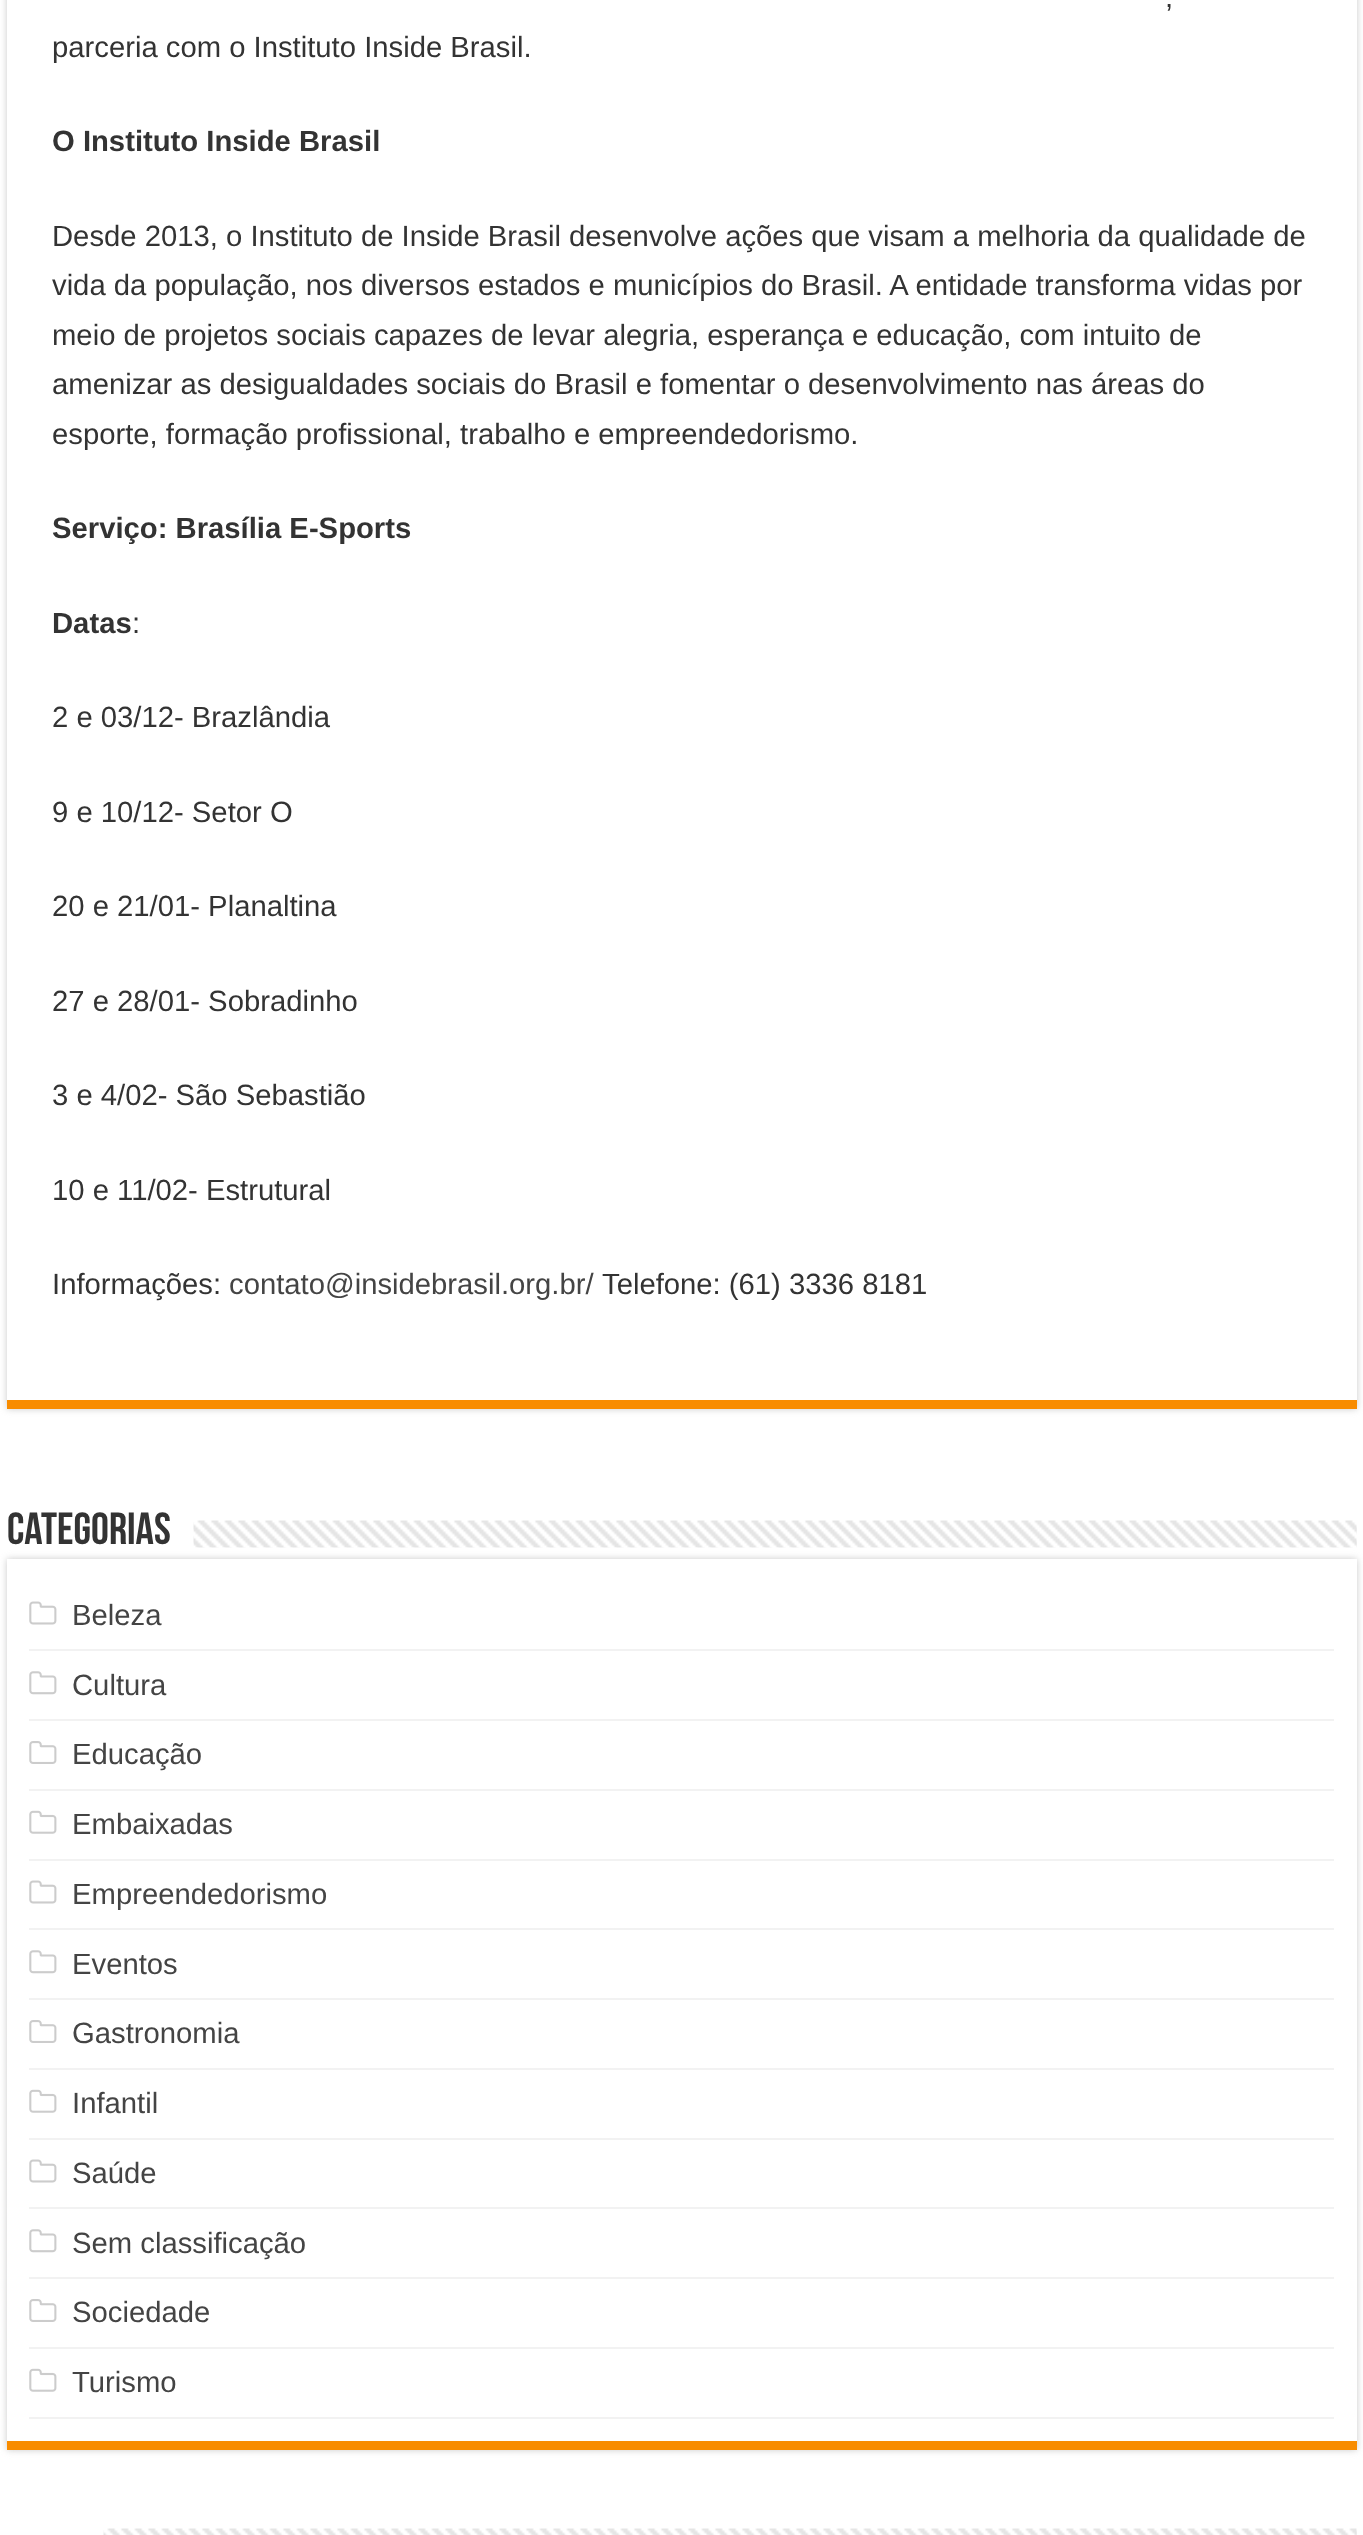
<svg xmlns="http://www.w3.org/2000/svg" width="1363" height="2535">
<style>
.a{font:29.25px Liberation Sans;fill:#333}
.b{font:bold 29.25px Liberation Sans;fill:#333}
.c{font:29.25px Liberation Sans;fill:#444}
.d{font:bold 45px Bebas Neue;fill:#333}
</style>
<rect width="100%" height="100%" fill="#fff"/>
<path fill="#cacaca" filter="blur(3.5px)" d="M7 -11h1350v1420H7z"/>
<path fill="#fff" d="M7 0h1350v1400H7z"/>
<path fill="#f88c00" d="M7 1400h1350v9H7z"/>
<path fill="#cacaca" filter="blur(3.5px)" d="M7 1559h1350v891H7z"/>
<image href="1.png" x="193" y="1520" width="1164" height="28"/>
<path fill="#fff" d="M7 1559h1350v882H7z"/>
<path fill="#f88c00" d="M7 2441h1350v9H7z"/>
<path fill="#f2f2f2" d="M29 1649h1305v2H29z"/>
<image href="2.png" x="29" y="1601" width="28" height="24"/>
<path fill="#f2f2f2" d="M29 1719h1305v2H29z"/>
<image href="3.png" x="29" y="1671" width="28" height="24"/>
<path fill="#f2f2f2" d="M29 1789h1305v2H29z"/>
<image href="4.png" x="29" y="1741" width="28" height="23"/>
<path fill="#f2f2f2" d="M29 1859h1305v2H29z"/>
<image href="5.png" x="29" y="1810" width="28" height="24"/>
<path fill="#f2f2f2" d="M29 1928h1305v2H29z"/>
<image href="2.png" x="29" y="1880" width="28" height="24"/>
<path fill="#f2f2f2" d="M29 1998h1305v2H29z"/>
<image href="3.png" x="29" y="1950" width="28" height="24"/>
<path fill="#f2f2f2" d="M29 2068h1305v2H29z"/>
<image href="4.png" x="29" y="2020" width="28" height="23"/>
<path fill="#f2f2f2" d="M29 2138h1305v2H29z"/>
<image href="5.png" x="29" y="2089" width="28" height="24"/>
<path fill="#f2f2f2" d="M29 2207h1305v2H29z"/>
<image href="2.png" x="29" y="2159" width="28" height="24"/>
<path fill="#f2f2f2" d="M29 2277h1305v2H29z"/>
<image href="3.png" x="29" y="2229" width="28" height="24"/>
<path fill="#f2f2f2" d="M29 2347h1305v2H29z"/>
<image href="4.png" x="29" y="2299" width="28" height="23"/>
<path fill="#f2f2f2" d="M29 2417h1305v2H29z"/>
<image href="5.png" x="29" y="2368" width="28" height="24"/>
<image href="6.png" x="103" y="2528" width="1254" height="7"/>
<text class="a" x="1165" y="7">,</text>
<text class="a" x="52" y="57">parceria com o Instituto Inside Brasil.</text>
<text class="b" x="52" y="151">O Instituto Inside Brasil</text>
<text class="a" x="52" y="246">Desde 2013, o Instituto de Inside Brasil desenvolve ações que visam a melhoria da qualidade de</text>
<text class="a" x="52" y="295">vida da população, nos diversos estados e municípios do Brasil. A entidade transforma vidas por</text>
<text class="a" x="52" y="345">meio de projetos sociais capazes de levar alegria, esperança e educação, com intuito de</text>
<text class="a" x="52" y="394">amenizar as desigualdades sociais do Brasil e fomentar o desenvolvimento nas áreas do</text>
<text class="a" x="52" y="444">esporte, formação profissional, trabalho e empreendedorismo.</text>
<text class="b" x="52" y="538">Serviço: Brasília E-Sports</text>
<text class="b" x="52" y="633">Datas</text>
<text class="a" x="132" y="633">:</text>
<text class="a" x="52" y="727">2 e 03/12- Brazlândia</text>
<text class="a" x="52" y="822">9 e 10/12- Setor O</text>
<text class="a" x="52" y="916">20 e 21/01- Planaltina</text>
<text class="a" x="52" y="1011">27 e 28/01- Sobradinho</text>
<text class="a" x="52" y="1105">3 e 4/02- São Sebastião</text>
<text class="a" x="52" y="1200">10 e 11/02- Estrutural</text>
<text class="a" x="52" y="1294">Informações:</text>
<text class="c" x="229" y="1294">contato@insidebrasil.org.br/</text>
<text class="a" x="602" y="1294">Telefone: (61) 3336 8181</text>
<text class="d" x="7" y="1544">Categorias</text>
<text class="c" x="72" y="1625">Beleza</text>
<text class="c" x="72" y="1695">Cultura</text>
<text class="c" x="72" y="1764">Educação</text>
<text class="c" x="72" y="1834">Embaixadas</text>
<text class="c" x="72" y="1904">Empreendedorismo</text>
<text class="c" x="72" y="1974">Eventos</text>
<text class="c" x="72" y="2043">Gastronomia</text>
<text class="c" x="72" y="2113">Infantil</text>
<text class="c" x="72" y="2183">Saúde</text>
<text class="c" x="72" y="2253">Sem classificação</text>
<text class="c" x="72" y="2322">Sociedade</text>
<text class="c" x="72" y="2392">Turismo</text>
</svg>
